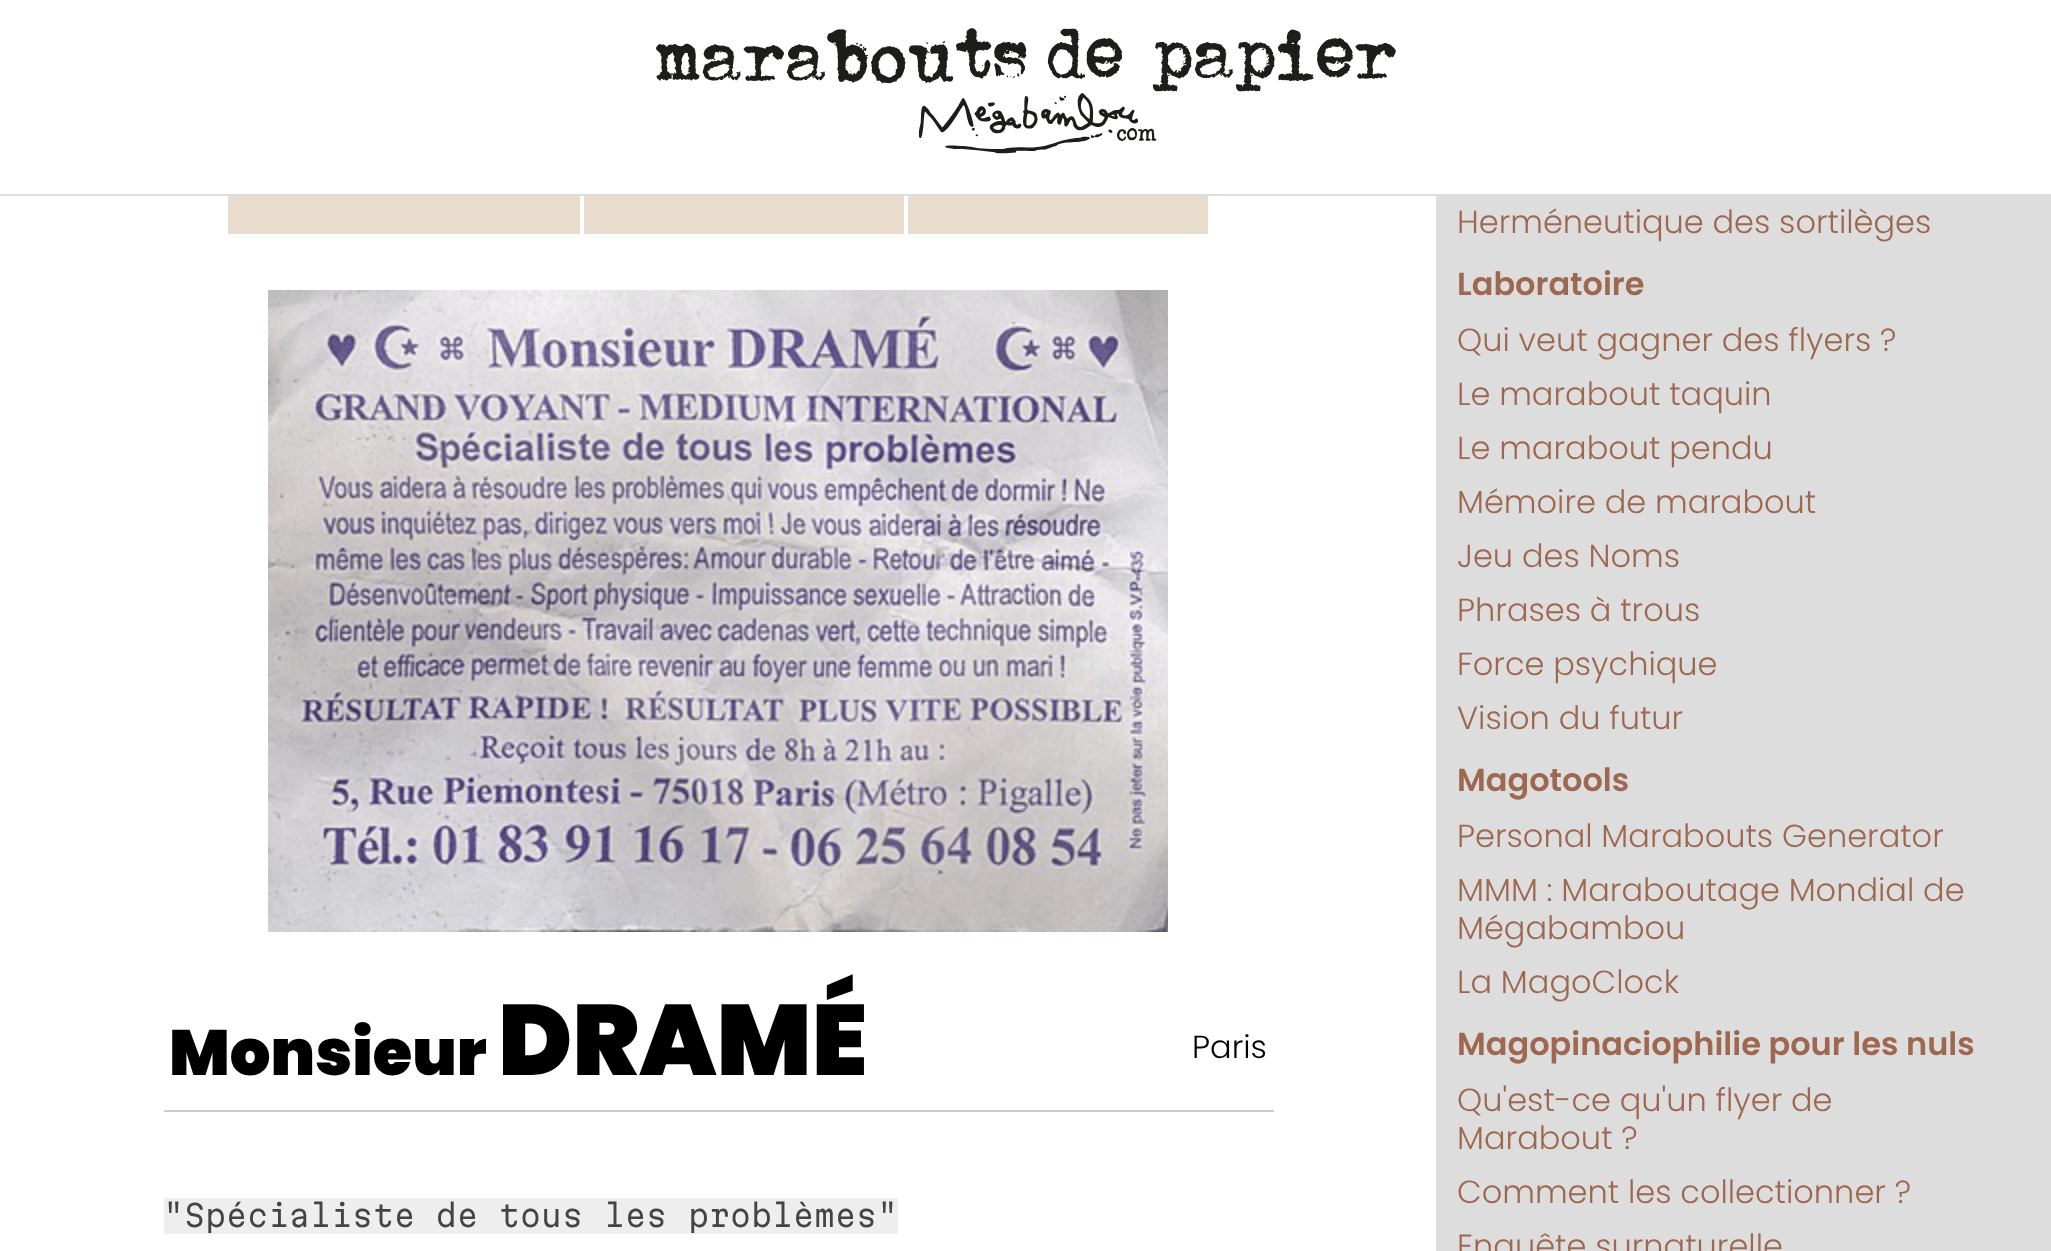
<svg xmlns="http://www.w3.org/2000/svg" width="2051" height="1251">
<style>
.a{font:900 64px Poppins;fill:#000}
.b{font:900 100px Poppins;fill:#000}
.c{font:300 32px Poppins;fill:#000}
.d{font:300 30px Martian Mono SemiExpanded;fill:#444}
.e{font:300 32px Poppins;fill:#9e6850}
.f{font:600 32px Poppins;fill:#9e6850}
</style>
<rect width="100%" height="100%" fill="#fff"/>
<path fill="#ddd" d="M0 194h2051v2H0z"/>
<image href="1.png" x="656" y="28" width="740" height="126"/>
<path fill="#ddd" d="M1436 196h615v1055H1436z"/>
<path fill="#e8dccc" d="M228 196h352v38H228z"/>
<path fill="#e8dccc" d="M584 196h320v38H584z"/>
<path fill="#e8dccc" d="M908 196h300v38H908z"/>
<image href="2.png" x="268" y="290" width="900" height="642"/>
<path fill="#ccc" d="M164 1110h1110v2H164z"/>
<path fill="#eee" d="M164 1198h734v36H164z"/>
<text class="a" x="169" y="1075">Monsieur</text>
<text class="b" x="498" y="1075">DRAMÉ</text>
<text class="c" x="1192" y="1058">Paris</text>
<text class="d" x="163" y="1227">"Spécialiste de tous les problèmes"</text>
<text class="e" x="1457" y="233">Herméneutique des sortilèges</text>
<text class="f" x="1457" y="295">Laboratoire</text>
<text class="e" x="1457" y="351">Qui veut gagner des flyers ?</text>
<text class="e" x="1457" y="405">Le marabout taquin</text>
<text class="e" x="1457" y="459">Le marabout pendu</text>
<text class="e" x="1457" y="513">Mémoire de marabout</text>
<text class="e" x="1457" y="567">Jeu des Noms</text>
<text class="e" x="1457" y="621">Phrases à trous</text>
<text class="e" x="1457" y="675">Force psychique</text>
<text class="e" x="1457" y="729">Vision du futur</text>
<text class="f" x="1457" y="791">Magotools</text>
<text class="e" x="1457" y="847">Personal Marabouts Generator</text>
<text class="e" x="1457" y="901">MMM : Maraboutage Mondial de</text>
<text class="e" x="1457" y="939">Mégabambou</text>
<text class="e" x="1457" y="993">La MagoClock</text>
<text class="f" x="1457" y="1055">Magopinaciophilie pour les nuls</text>
<text class="e" x="1457" y="1111">Qu'est-ce qu'un flyer de</text>
<text class="e" x="1457" y="1149">Marabout ?</text>
<text class="e" x="1457" y="1203">Comment les collectionner ?</text>
<text class="e" x="1457" y="1257">Enquête surnaturelle</text>
</svg>
